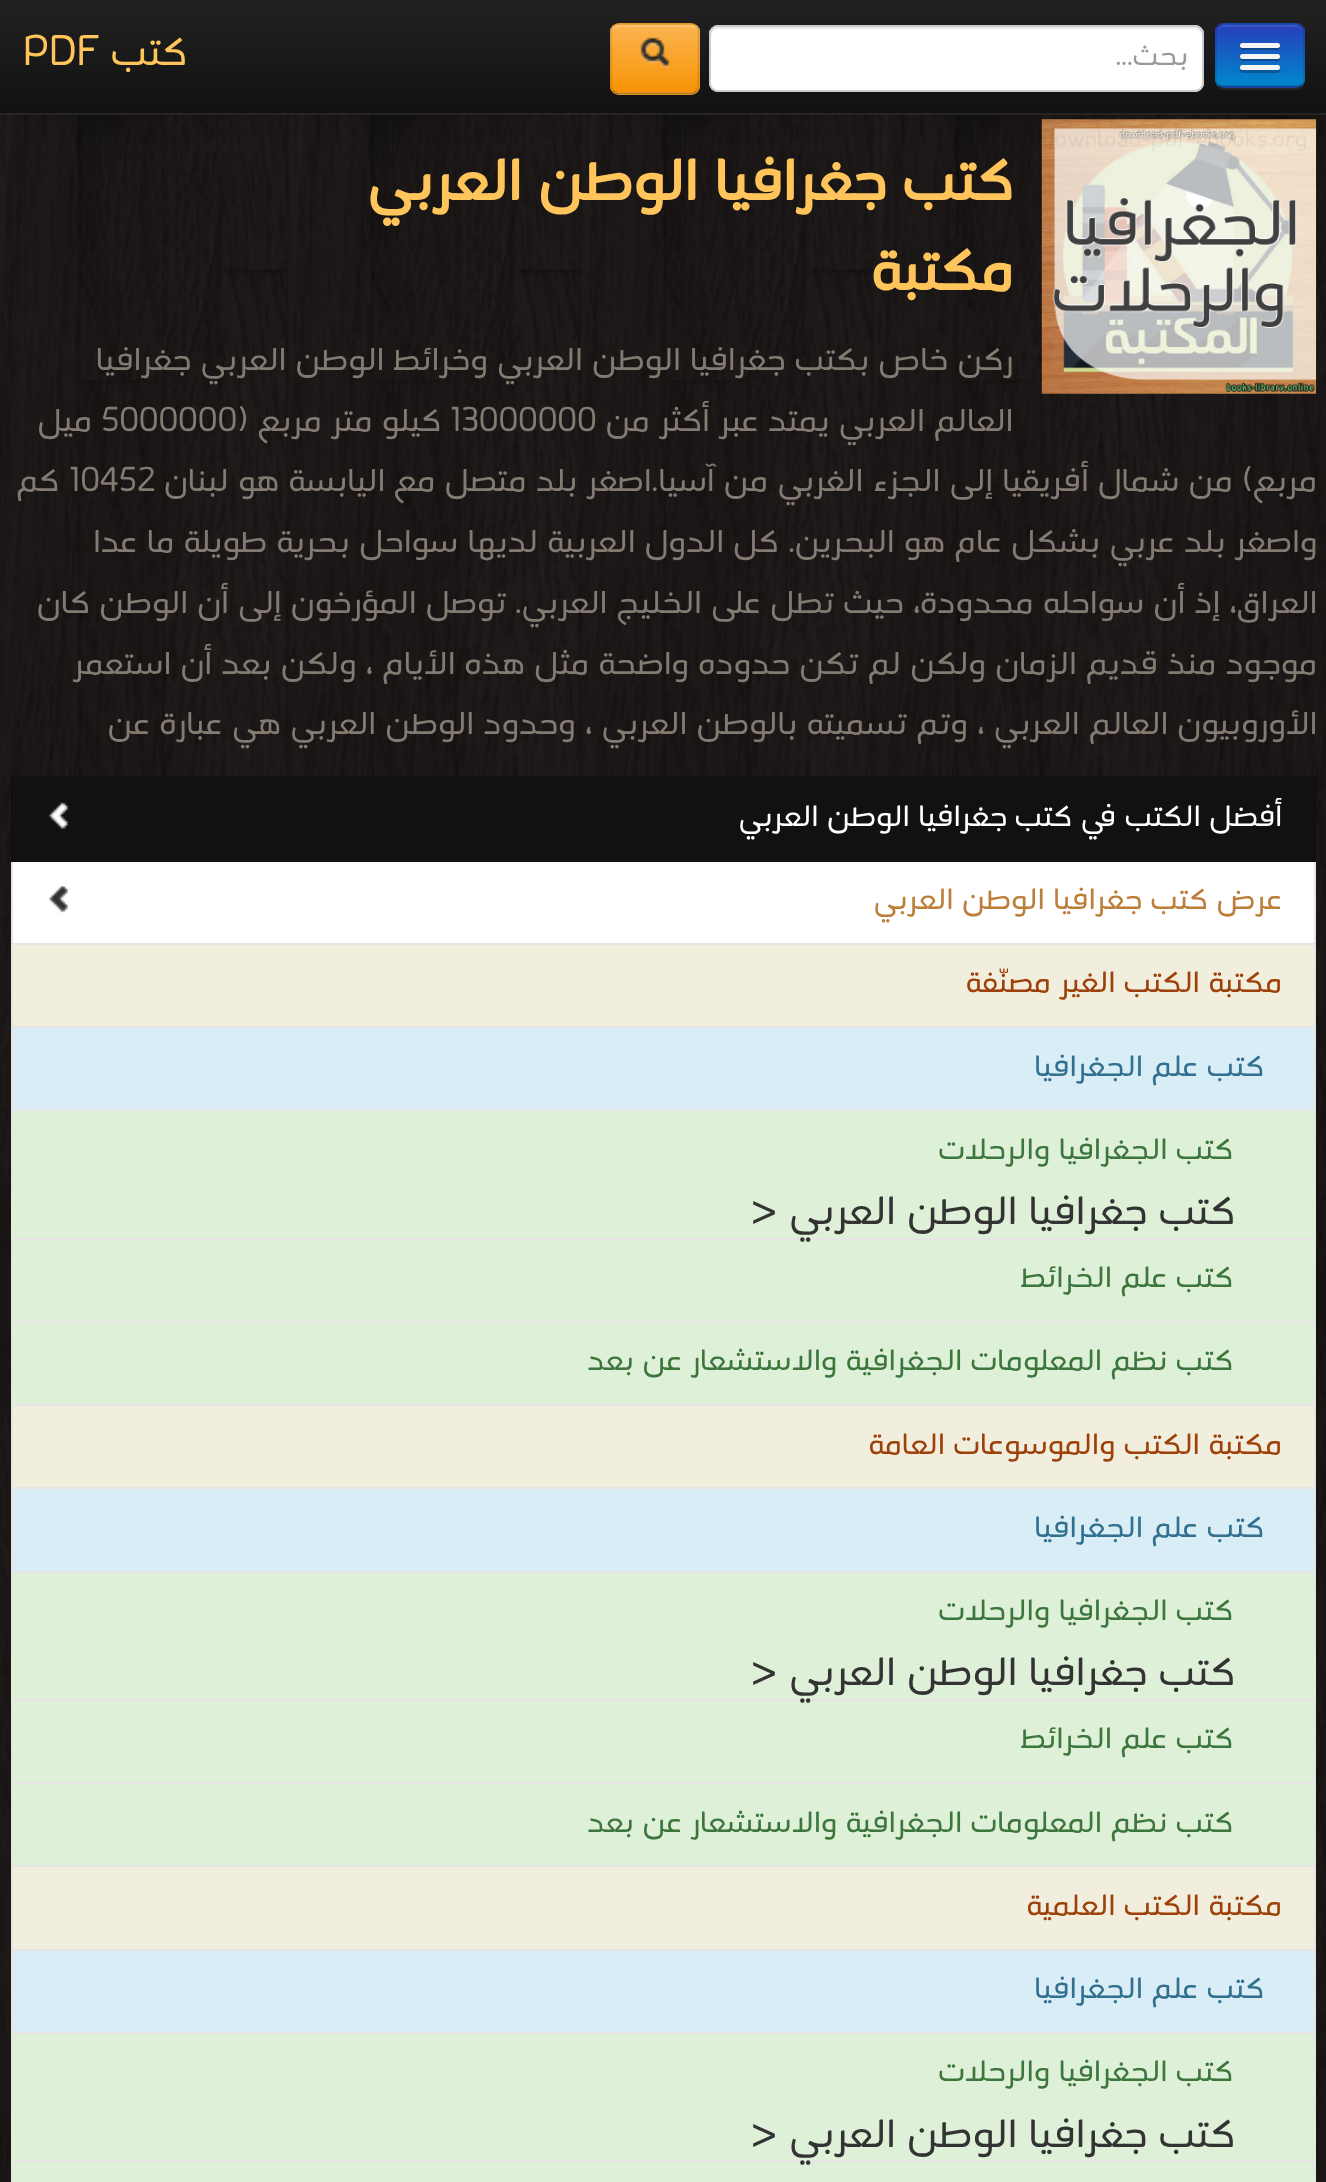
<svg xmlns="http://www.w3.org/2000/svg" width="1326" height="2182">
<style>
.a{font:31.5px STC;direction:rtl;fill:#999}
.b{font:45px STC;direction:rtl;fill:#ffc55b}
.c{font:45px STC;fill:#ffc55b}
.d{font:bold 65.25px STC;direction:rtl;fill:#ffc55b}
.e{font:36.25px STC;direction:rtl;fill:#837a71}
.f{font:36.25px STC;fill:#837a71}
.g{font:33.75px STC;direction:rtl;fill:#fff}
.h{font:33.75px STC;direction:rtl;fill:#bd7e3a}
.i{font:33.75px STC;direction:rtl;fill:#9d4009}
.j{font:33.75px STC;direction:rtl;fill:#31708f}
.k{font:33.75px STC;direction:rtl;fill:#3c763d}
.l{font:45px STC;direction:rtl;fill:#333}
.m{font:45px STC;fill:#333}
</style>
<defs>
<linearGradient id="g1" gradientUnits="userSpaceOnUse" x1="664" y1="0" x2="664" y2="113"><stop offset="0" stop-color="#222"/><stop offset="1" stop-color="#111"/></linearGradient>
<clipPath id="clip1"><rect x="1215" y="23" width="90" height="65" rx="9"/></clipPath>
<linearGradient id="g2" gradientUnits="userSpaceOnUse" x1="1260" y1="25" x2="1260" y2="86"><stop offset="0" stop-color="#263fbb"/><stop offset="1" stop-color="#08c"/></linearGradient>
<clipPath id="clip2"><rect x="610" y="23" width="90" height="72" rx="9"/></clipPath>
<linearGradient id="g3" gradientUnits="userSpaceOnUse" x1="655" y1="25" x2="655" y2="92"><stop offset="0" stop-color="#fbb450"/><stop offset="1" stop-color="#f89406"/></linearGradient>
</defs>
<rect width="100%" height="100%" fill="#fff"/>
<image href="1.png" x="0" y="115" width="1326" height="2067"/>
<image href="3.png" x="1041" y="119" width="276" height="275"/>
<path fill="#0000001a" filter="blur(11px)" d="M0 2h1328v115H0z"/>
<path fill="url(#g1)" d="M0 0h1326v113H0z"/>
<path fill="#252525" d="M0 113h1326v2H0z"/>
<path fill="#272727" d="M1215 79c0 13 10 11 21 11h48c11 0 21 2 21-11c0 5-4 9-9 9h-72c-5 0-9-4-9-9z"/>
<rect fill="#1e50bf" x="1215" y="23" width="90" height="65" rx="9"/>
<g clip-path="url(#clip1)">
<path fill="url(#g2)" d="M1215 25h90v61H1215z"/>
</g>
<path fill="#ffffff1a" d="M1224 27h72c4 0 7 3 7 7c0-12-10-9-19-9h-48c-9 0-19-3-19 9c0-4 3-7 7-7z"/>
<path fill="none" stroke="#00000040" stroke-width="2.2" d="M1301.5 84.5c-1.5 1.5-3.5 2-5.5 2h-72c-2 0-4-.5-5.5-2"/>
<path fill="none" stroke="#0000001a" stroke-width="2.2" d="M1218.5 84.5c-1.5-1.5-2.5-3.5-2.5-5.5v-47.5c0-2 1-4 2.5-5.5c1.5-1.5 3.5-2.5 5.5-2.5h72c2 0 4 1 5.5 2.5c1.5 1.5 2.5 3.5 2.5 5.5v47.5c0 2-1 4-2.5 5.5"/>
<path fill="#00000040" d="M1240 46c-2 5 7 4 8 4h24c1 0 10 1 8-4l-2 1h-36z"/>
<rect fill="#f5f5f5" x="1240" y="43" width="40" height="5" rx="2.5"/>
<path fill="#0d4e93" d="M1240 58c-2 4 7 3 8 3h24c1 0 10 1 8-3h-2h-36z"/>
<rect fill="#f5f5f5" x="1240" y="54" width="40" height="5" rx="2.5"/>
<path fill="#00000040" d="M1240 69c-3 5 8 4 8 4h24c0 0 11 1 8-4c-2 1-38 1-40 0z"/>
<rect fill="#f5f5f5" x="1240" y="65" width="40" height="5" rx="2.5"/>
<rect fill="#fff" x="709" y="25" width="495" height="67" rx="9"/>
<path fill="#ececec" d="M718 29h477c3 0 7 3 7 7v-2c0-4-3-7-7-7h-477c-4 0-7 3-7 7v2c0-4 3-7 7-7z"/>
<rect fill="none" stroke="#ccc" stroke-width="2" x="710" y="26" width="493" height="65" rx="8"/>
<rect fill="#faa732" x="610" y="23" width="90" height="72" rx="9"/>
<g clip-path="url(#clip2)">
<path fill="url(#g3)" d="M610 25h90v67H610z"/>
</g>
<path fill="#ffffff33" d="M619 27h72c3 0 7 3 7 7c0-12-10-9-19-9h-48c-9 0-19-3-19 9c0-4 3-7 7-7z"/>
<path fill="none" stroke="#00000040" stroke-width="2.2" d="M696.5 91c-1.5 1.5-3.5 2.5-5.5 2.5h-72c-2.5 0-4.5-1-6-2.5"/>
<path fill="none" stroke="#0000001a" stroke-width="2.2" d="M613 91c-1.5-1.5-2-3.5-2-5.5v-54c0-2 .5-4 2-5.5c1.5-1.5 3.5-2.5 6-2.5h72c2 0 4 1 5.5 2.5c1.5 1.5 2 3.5 2 5.5v54c0 2-.5 4-2 5.5"/>
<image href="2.png" x="640" y="37" width="31" height="31"/>
<path fill="#fff" stroke="#e5e5e5" stroke-width="2" d="M12 861h1303v83H12z"/>
<path fill="#111" d="M13 776h1301v86H13z"/>
<path fill="#0f0f0f" d="M1314 776h2v86H1314z"/>
<path fill="#0f0f0f" d="M11 776h2v86H11z"/>
<image href="4.png" x="49" y="802" width="20" height="28"/>
<image href="5.png" x="49" y="886" width="20" height="28"/>
<path fill="#f2eede" stroke="#e5e5e5" stroke-width="2" d="M12 944h1303v83H12z"/>
<path fill="#d9edf7" d="M13 1028h1301v81H13z"/>
<path fill="none" stroke="#e5e5e5" stroke-width="2" d="M12 1027h1303v84H12z"/>
<path fill="#dff0d8" stroke="#e5e5e5" stroke-width="2" d="M12 1110h1303v84H12z"/>
<path fill="#dff0d8" d="M11 1193h1305v45H11z"/>
<path fill="#dff0d8" stroke="#e5e5e5" stroke-width="2" d="M12 1239h1303v83H12z"/>
<path fill="#dff0d8" stroke="#e5e5e5" stroke-width="2" d="M12 1322h1303v83H12z"/>
<path fill="#f2eede" d="M13 1406h1301v81H13z"/>
<path fill="none" stroke="#e5e5e5" stroke-width="2" d="M12 1405h1303v84H12z"/>
<path fill="#d9edf7" stroke="#e5e5e5" stroke-width="2" d="M12 1488h1303v84H12z"/>
<path fill="#dff0d8" stroke="#e5e5e5" stroke-width="2" d="M12 1572h1303v83H12z"/>
<path fill="#dff0d8" d="M11 1654h1305v45H11z"/>
<path fill="#dff0d8" stroke="#e5e5e5" stroke-width="2" d="M12 1700h1303v83H12z"/>
<path fill="#dff0d8" d="M13 1784h1301v81H13z"/>
<path fill="none" stroke="#e5e5e5" stroke-width="2" d="M12 1783h1303v84H12z"/>
<path fill="#f2eede" stroke="#e5e5e5" stroke-width="2" d="M12 1866h1303v84H12z"/>
<path fill="#d9edf7" stroke="#e5e5e5" stroke-width="2" d="M12 1950h1303v83H12z"/>
<path fill="#dff0d8" stroke="#e5e5e5" stroke-width="2" d="M12 2033h1303v83H12z"/>
<path fill="#dff0d8" d="M11 2115h1305v45H11z"/>
<path fill="#dff0d8" stroke="#e5e5e5" stroke-width="2" d="M12 2161h1303v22H12z"/>
<text class="a" x="1188" y="65">بحث...</text>
<text class="b" x="187" y="65">كتب</text>
<text class="c" x="23" y="65">PDF</text>
<text class="d" x="1013" y="200">كتب</text>
<text class="d" x="886" y="200">جغرافيا الوطن العربي</text>
<text class="d" x="1013" y="290">مكتبة</text>
<text class="e" x="1013" y="370">ركن خاص بكتب جغرافيا الوطن العربي وخرائط</text>
<text class="e" x="384" y="370">الوطن العربي جغرافيا</text>
<text class="e" x="1013" y="431">العالم العربي يمتد عبر أكثر من</text>
<text class="f" x="450" y="431">13000000</text>
<text class="e" x="441" y="431">كيلو متر مربع (</text>
<text class="f" x="101" y="431">5000000</text>
<text class="e" x="92" y="431">ميل</text>
<text class="e" x="1317" y="491">مربع) من شمال أفريقيا إلى الجزء الغربي من آسيا.اصغر بلد متصل مع اليابسة هو لبنان</text>
<text class="f" x="69" y="491">10452</text>
<text class="e" x="59" y="491">كم</text>
<text class="e" x="1317" y="552">واصغر بلد عربي بشكل عام هو البحرين. كل الدول العربية لديها سواحل بحرية طويلة ما عدا</text>
<text class="e" x="1317" y="613">العراق، إذ أن سواحله محدودة، حيث تطل على الخليج العربي.</text>
<text class="e" x="506" y="613">توصل المؤرخون إلى أن الوطن كان</text>
<text class="e" x="1317" y="674">موجود منذ قديم الزمان ولكن لم تكن حدوده واضحة مثل هذه الأيام ، ولكن بعد أن استعمر</text>
<text class="e" x="1317" y="734">الأوروبيون العالم العربي ، وتم تسميته بالوطن العربي ، وحدود الوطن العربي هي عبارة عن</text>
<text class="g" x="1282" y="826">أفضل الكتب في كتب</text>
<text class="g" x="1007" y="826">جغرافيا الوطن العربي</text>
<text class="h" x="1282" y="909">عرض كتب</text>
<text class="h" x="1142" y="909">جغرافيا الوطن العربي</text>
<text class="i" x="1282" y="992">مكتبة الكتب الغير مصنّفة</text>
<text class="j" x="1264" y="1076">كتب علم الجغرافيا</text>
<text class="k" x="1233" y="1159">كتب الجغرافيا والرحلات</text>
<text class="l" x="1235" y="1224">كتب جغرافيا الوطن العربي</text>
<text class="m" x="751" y="1224">&gt;</text>
<text class="k" x="1233" y="1287">كتب علم الخرائط</text>
<text class="k" x="1233" y="1370">كتب نظم المعلومات الجغرافية والاستشعار عن بعد</text>
<text class="i" x="1282" y="1454">مكتبة الكتب والموسوعات العامة</text>
<text class="j" x="1264" y="1537">كتب علم الجغرافيا</text>
<text class="k" x="1233" y="1620">كتب الجغرافيا والرحلات</text>
<text class="l" x="1235" y="1685">كتب جغرافيا الوطن العربي</text>
<text class="m" x="751" y="1685">&gt;</text>
<text class="k" x="1233" y="1748">كتب علم الخرائط</text>
<text class="k" x="1233" y="1832">كتب نظم المعلومات الجغرافية والاستشعار عن بعد</text>
<text class="i" x="1282" y="1915">مكتبة الكتب العلمية</text>
<text class="j" x="1264" y="1998">كتب علم الجغرافيا</text>
<text class="k" x="1233" y="2081">كتب الجغرافيا والرحلات</text>
<text class="l" x="1235" y="2147">كتب جغرافيا الوطن العربي</text>
<text class="m" x="751" y="2147">&gt;</text>
</svg>
